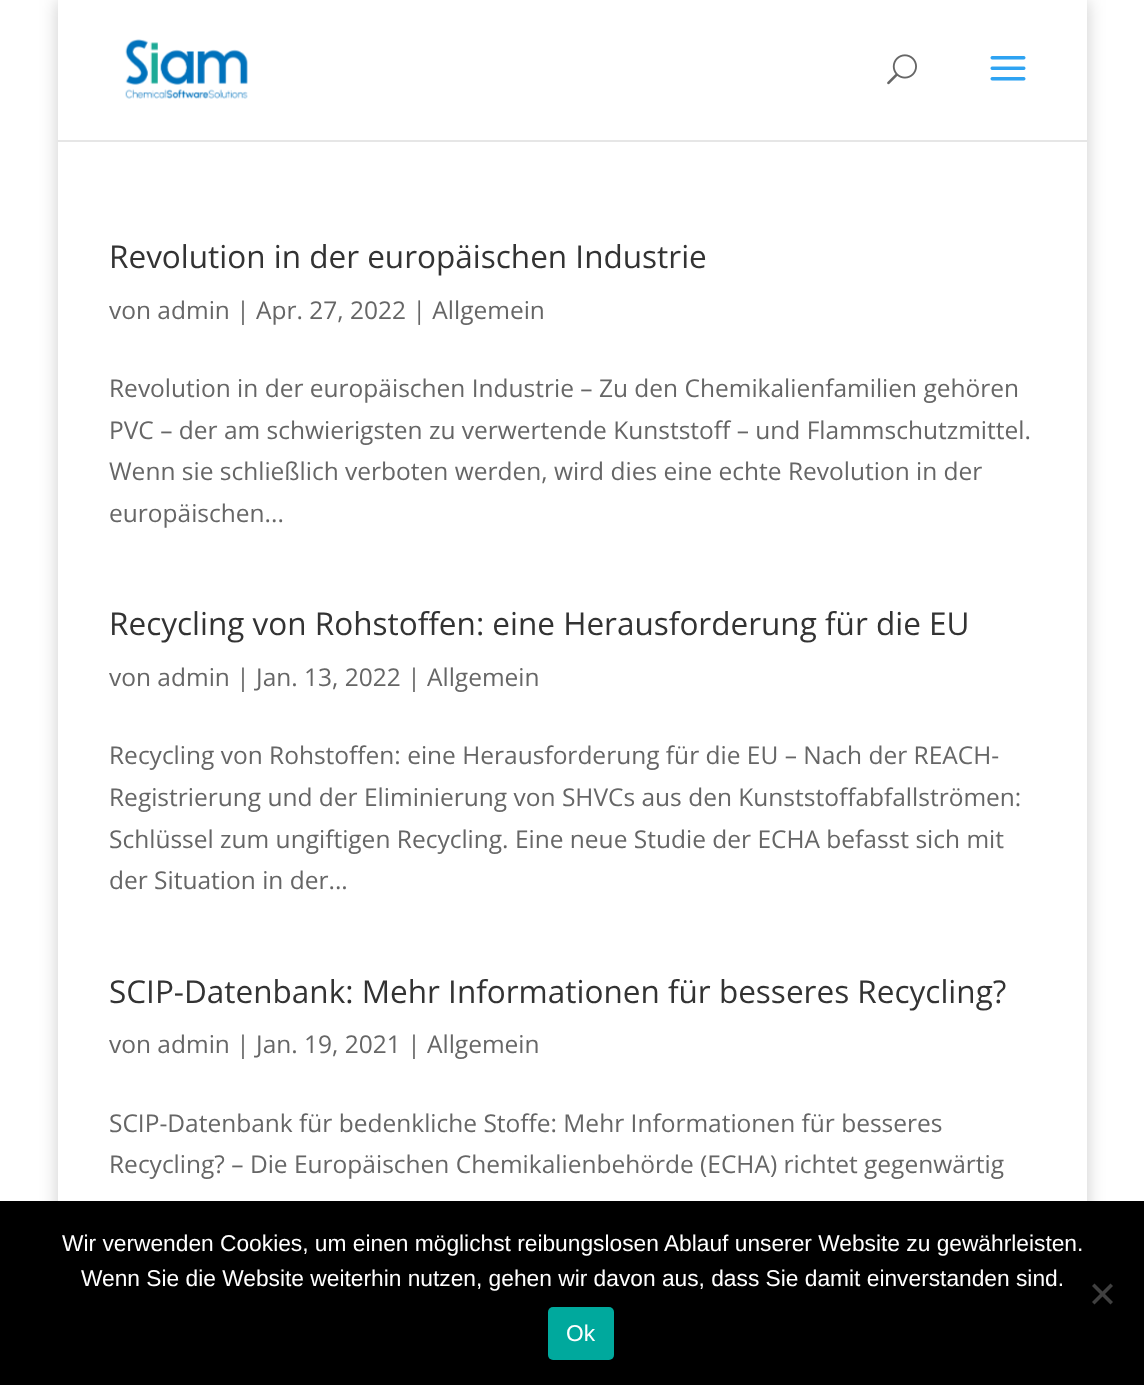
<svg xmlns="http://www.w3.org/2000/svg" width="1144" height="1385">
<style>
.a{font:31.5px Open Sans;fill:#333}
.b{font:24.5px Open Sans;fill:#666}
.c{font:22.75px Liberation Sans;fill:#fff}
</style>
<rect width="100%" height="100%" fill="#fff"/>
<path fill="#00000033" filter="blur(9px)" d="M58 0h1029v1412H58z"/>
<path fill="#e6e6e6" d="M58 140v2h1029v-140v138z"/>
<path fill="#fff" d="M58 0h1029v140H58z"/>
<image href="1.png" x="125" y="39" width="123" height="60"/>
<image href="2.png" x="887" y="54" width="30" height="31"/>
<image href="3.png" x="990" y="56" width="36" height="25"/>
<path fill="#fff" d="M58 142h1029v1059H58z"/>
<path fill="#000" d="M0 1201h1144v184H0z"/>
<path fill="#404040" d="M1110.5 1283.5l2.5 2.5l-18.5 18.5l-2.5-2.5z"/>
<path fill="#404040" d="M1092 1286l2.5-2.5l18.5 18.5l-2.5 2.5z"/>
<rect fill="#00a99d" x="548" y="1307" width="66" height="53" rx="5"/>
<text class="a" x="109" y="268">Revolution in der europäischen Industrie</text>
<text class="b" x="109" y="319">von admin | Apr. 27, 2022 | Allgemein</text>
<text class="b" x="109" y="397">Revolution in der europäischen Industrie – Zu den Chemikalienfamilien gehören</text>
<text class="b" x="109" y="439">PVC – der am schwierigsten zu verwertende Kunststoff – und Flammschutzmittel.</text>
<text class="b" x="109" y="480">Wenn sie schließlich verboten werden, wird dies eine echte Revolution in der</text>
<text class="b" x="109" y="522">europäischen...</text>
<text class="a" x="109" y="635">Recycling von Rohstoffen: eine Herausforderung für die EU</text>
<text class="b" x="109" y="686">von admin | Jan. 13, 2022 | Allgemein</text>
<text class="b" x="109" y="764">Recycling von Rohstoffen: eine Herausforderung für die EU – Nach der REACH-</text>
<text class="b" x="109" y="806">Registrierung und der Eliminierung von SHVCs aus den Kunststoffabfallströmen:</text>
<text class="b" x="109" y="848">Schlüssel zum ungiftigen Recycling. Eine neue Studie der ECHA befasst sich mit</text>
<text class="b" x="109" y="889">der Situation in der...</text>
<text class="a" x="109" y="1003">SCIP-Datenbank: Mehr Informationen für besseres Recycling?</text>
<text class="b" x="109" y="1053">von admin | Jan. 19, 2021 | Allgemein</text>
<text class="b" x="109" y="1132">SCIP-Datenbank für bedenkliche Stoffe: Mehr Informationen für besseres</text>
<text class="b" x="109" y="1173">Recycling? – Die Europäischen Chemikalienbehörde (ECHA) richtet gegenwärtig</text>
<text class="c" x="62" y="1251">Wir verwenden Cookies, um einen möglichst reibungslosen Ablauf unserer Website zu gewährleisten.</text>
<text class="c" x="81" y="1286">Wenn Sie die Website weiterhin nutzen, gehen wir davon aus, dass Sie damit einverstanden sind.</text>
<text class="c" x="566" y="1341">Ok</text>
</svg>
